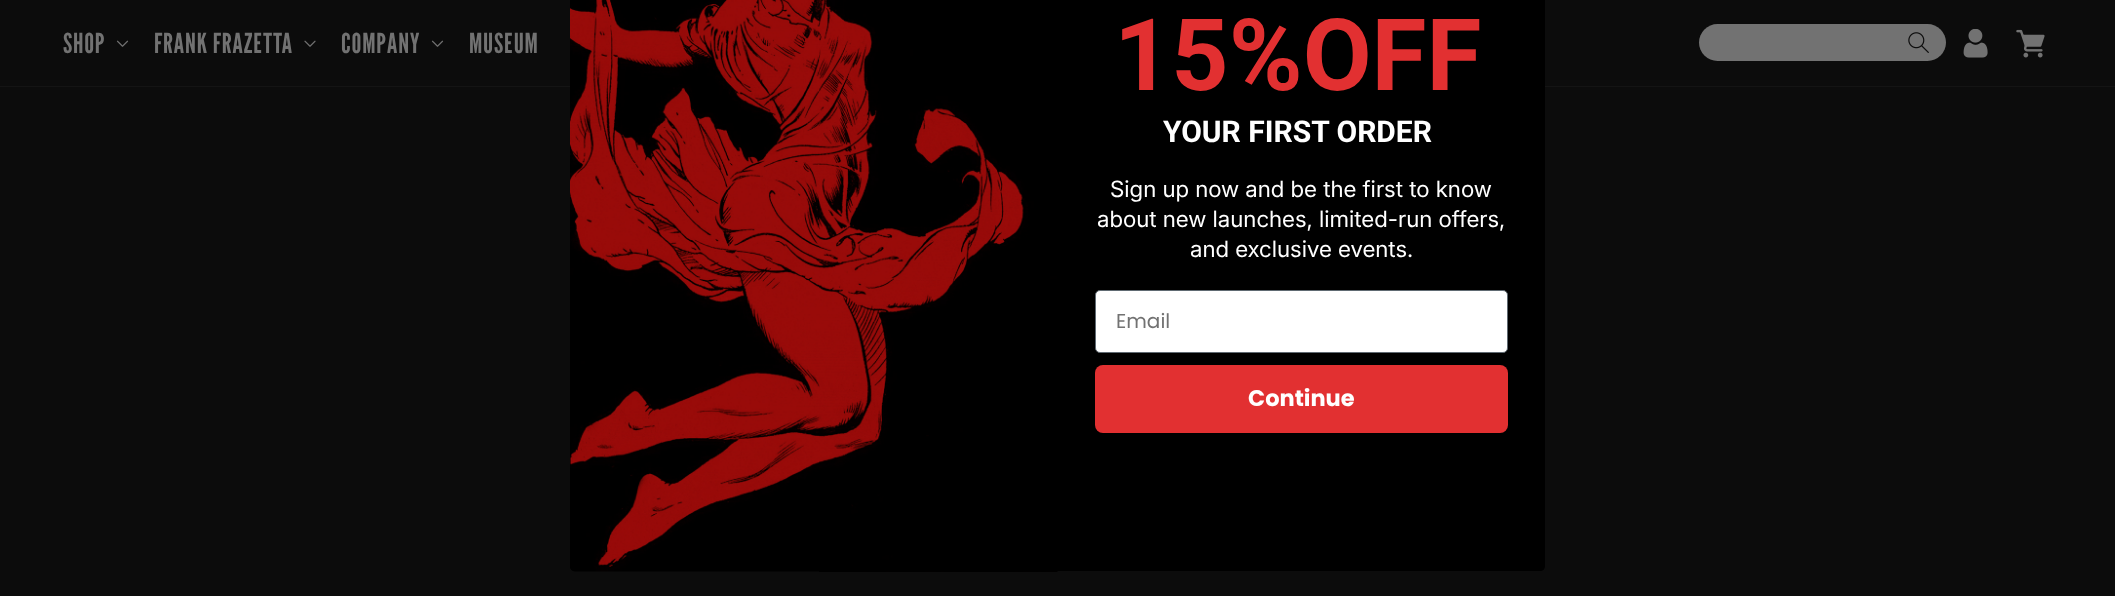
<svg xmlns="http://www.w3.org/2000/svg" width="2115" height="596">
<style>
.a{font:27.5px League Gothic;letter-spacing:0.75px;fill:#727272}
.b{font:bold 100px Roboto;fill:#e23031}
.c{font:bold 30px Roboto;fill:#fff}
.d{font:22.5px Inter;fill:#fff}
.e{font:20px Poppins;fill:#727272}
.f{font:bold 22.5px Poppins;fill:#fff}
</style>
<rect width="100%" height="100%" fill="#0c0c0c"/>
<path fill="#141414" d="M0 86h2115v1H0z"/>
<image href="1.png" x="116" y="40" width="13" height="7"/>
<image href="2.png" x="304" y="40" width="12" height="7"/>
<image href="1.png" x="431" y="40" width="13" height="7"/>
<rect fill="#727272" x="1699" y="24" width="247" height="37" rx="18.5"/>
<image href="3.png" x="1908" y="32" width="21" height="21"/>
<image href="4.png" x="1963" y="29" width="25" height="29"/>
<image href="5.png" x="2016" y="29" width="29" height="29"/>
<path fill="#000" d="M570 0h975v566c0 3-2 5-5 5h-965c-3 0-5-2-5-5z"/>
<image href="6.png" x="570" y="0" width="488" height="572"/>
<rect fill="#fff" stroke="#606a72" x="1095.5" y="290.5" width="412" height="62" rx="4.5"/>
<rect fill="#e23031" x="1095" y="365" width="413" height="68" rx="8"/>
<text class="a" x="63" y="53">SHOP</text>
<text class="a" x="154" y="53">FRANK FRAZETTA</text>
<text class="a" x="341" y="53">COMPANY</text>
<text class="a" x="469" y="53">MUSEUM</text>
<text class="b" x="1114" y="90">15%OFF</text>
<text class="c" x="1163" y="142">YOUR FIRST ORDER</text>
<text class="d" x="1110" y="197">Sign up now and be the first to know</text>
<text class="d" x="1097" y="227">about new launches, limited-run offers,</text>
<text class="d" x="1190" y="257">and exclusive events.</text>
<text class="e" x="1116" y="328">Email</text>
<text class="f" x="1248" y="406">Continue</text>
</svg>
